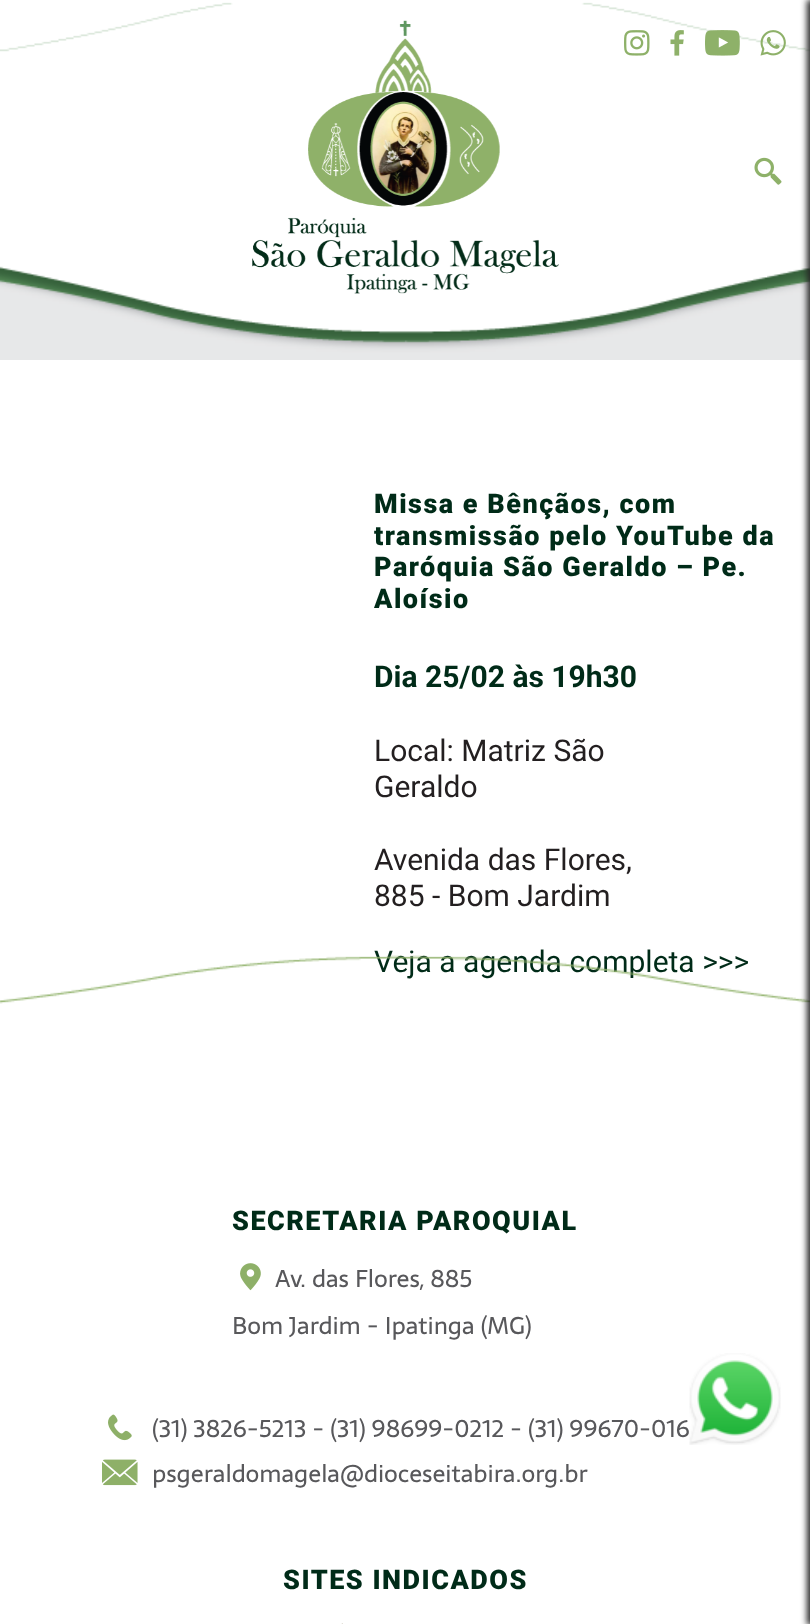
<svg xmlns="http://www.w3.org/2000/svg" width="810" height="1624">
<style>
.a{font:900 27px Roboto;letter-spacing:1.5px;fill:#002b18}
.b{font:bold 30px Roboto;fill:#002b18}
.c{font:30px Roboto;fill:#231f20}
.d{font:30px Roboto;fill:#002b18}
.e{font:24px Sarala;fill:#58585b}
</style>
<rect width="100%" height="100%" fill="#fff"/>
<image href="1.png" x="0" y="2" width="810" height="358"/>
<image href="2.png" x="252" y="20" width="307" height="274"/>
<image href="3.png" x="754" y="157" width="28" height="28"/>
<image href="4.png" x="624" y="30" width="26" height="26"/>
<image href="5.png" x="670" y="30" width="14" height="26"/>
<image href="6.png" x="705" y="30" width="35" height="26"/>
<image href="7.png" x="760" y="30" width="26" height="26"/>
<image href="9.png" x="240" y="1263" width="21" height="28"/>
<image href="10.png" x="108" y="1414" width="24" height="27"/>
<image href="11.png" x="102" y="1459" width="36" height="27"/>
<image href="12.png" x="341" y="1623" width="2" height="1"/>
<text class="a" x="374" y="513">Missa e Bênçãos, com</text>
<text class="a" x="374" y="545">transmissão pelo YouTube da</text>
<text class="a" x="374" y="576">Paróquia São Geraldo – Pe.</text>
<text class="a" x="374" y="608">Aloísio</text>
<text class="b" x="374" y="687">Dia 25/02 às 19h30</text>
<text class="c" x="374" y="761">Local: Matriz São</text>
<text class="c" x="374" y="797">Geraldo</text>
<text class="c" x="374" y="870">Avenida das Flores,</text>
<text class="c" x="374" y="906">885 - Bom Jardim</text>
<text class="d" x="374" y="972">Veja a agenda completa &gt;&gt;&gt;</text>
<image href="8.png" x="0" y="955" width="810" height="49"/>
<path fill="#252525" filter="blur(3px)" d="M807 0h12v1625H807z"/>
<text class="a" x="232" y="1230">SECRETARIA PAROQUIAL</text>
<text class="e" x="275" y="1287">Av. das Flores, 885</text>
<text class="e" x="232" y="1334">Bom Jardim - Ipatinga (MG)</text>
<text class="e" x="152" y="1437">(31) 3826-5213 - (31) 98699-0212 - (31) 99670-016</text>
<text class="e" x="152" y="1482">psgeraldomagela@dioceseitabira.org.br</text>
<text class="a" x="283" y="1589">SITES INDICADOS</text>
<image href="13.png" x="689" y="1353" width="92" height="92"/>
</svg>
